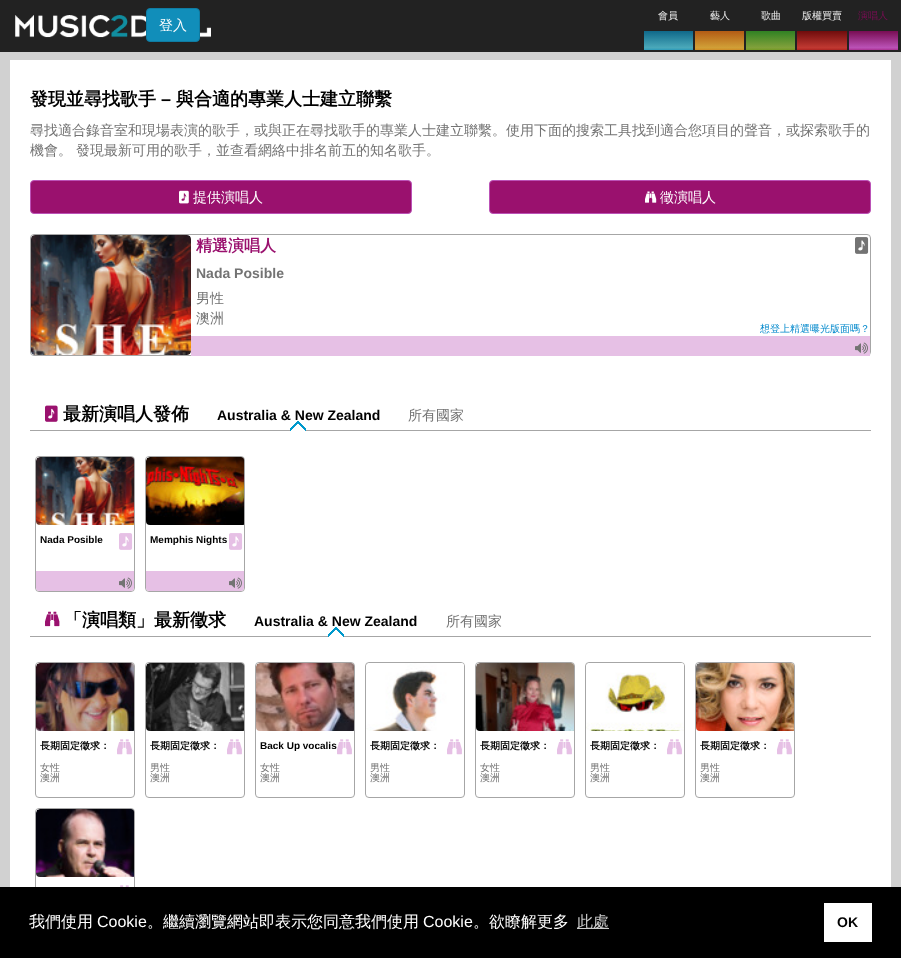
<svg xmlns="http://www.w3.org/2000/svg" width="901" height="958">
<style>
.a{font:500 10px WenQuanYi Zen Hei;fill:#eee}
.b{font:500 10px WenQuanYi Zen Hei;fill:#780d53}
.c{font:500 14px WenQuanYi Zen Hei;fill:#fff}
.d{font:bold 18px WenQuanYi Zen Hei;fill:#000}
.e{font:bold 18px Liberation Sans;fill:#000}
.f{font:500 14px WenQuanYi Zen Hei;fill:#737373}
.g{font:bold 16px WenQuanYi Zen Hei;fill:#9a116e}
.h{font:bold 14px Liberation Sans;fill:#737373}
.i{font:500 10px WenQuanYi Zen Hei;fill:#08c}
.j{font:bold 14px Liberation Sans;fill:#000}
.k{font:bold 10px Liberation Sans;fill:#000}
.l{font:bold 10px WenQuanYi Zen Hei;fill:#000}
.m{font:500 10px WenQuanYi Zen Hei;fill:#737373}
.n{font:500 16px WenQuanYi Zen Hei;fill:#fff}
.o{font:16px Liberation Sans;fill:#fff}
.p{font:500 16px WenQuanYi Zen Hei;fill:#ccc}
</style>
<defs>
<linearGradient id="g1" gradientUnits="userSpaceOnUse" x1="669" y1="31" x2="669" y2="52"><stop offset="0" stop-color="#0f6889"/><stop offset="0.8" stop-color="#4ba9ba"/><stop offset="1" stop-color="#118eba"/></linearGradient>
<linearGradient id="g2" gradientUnits="userSpaceOnUse" x1="720" y1="31" x2="720" y2="52"><stop offset="0" stop-color="#b35b14"/><stop offset="0.8" stop-color="#d1a037"/><stop offset="1" stop-color="#cf7b14"/></linearGradient>
<linearGradient id="g3" gradientUnits="userSpaceOnUse" x1="771" y1="31" x2="771" y2="52"><stop offset="0" stop-color="#308123"/><stop offset="0.8" stop-color="#82a13b"/><stop offset="1" stop-color="#669310"/></linearGradient>
<linearGradient id="g4" gradientUnits="userSpaceOnUse" x1="822" y1="31" x2="822" y2="52"><stop offset="0" stop-color="#6f0c0c"/><stop offset="0.8" stop-color="#c13932"/><stop offset="1" stop-color="#9d1111"/></linearGradient>
<linearGradient id="g5" gradientUnits="userSpaceOnUse" x1="874" y1="31" x2="874" y2="52"><stop offset="0" stop-color="#780d53"/><stop offset="0.8" stop-color="#bb52b7"/><stop offset="1" stop-color="#9a116e"/></linearGradient>
<clipPath id="clip1"><rect x="36" y="457" width="98" height="134" rx="3"/></clipPath>
<clipPath id="clip2"><rect x="146" y="457" width="98" height="134" rx="3"/></clipPath>
<clipPath id="clip3"><rect x="36" y="663" width="98" height="134" rx="3"/></clipPath>
<clipPath id="clip4"><rect x="146" y="663" width="98" height="134" rx="3"/></clipPath>
<clipPath id="clip5"><rect x="256" y="663" width="98" height="134" rx="3"/></clipPath>
<clipPath id="clip6"><rect x="366" y="663" width="98" height="134" rx="3"/></clipPath>
<clipPath id="clip7"><rect x="476" y="663" width="98" height="134" rx="3"/></clipPath>
<clipPath id="clip8"><rect x="586" y="663" width="98" height="134" rx="3"/></clipPath>
<clipPath id="clip9"><rect x="696" y="663" width="98" height="134" rx="3"/></clipPath>
<clipPath id="clip10"><rect x="36" y="809" width="98" height="134" rx="3"/></clipPath>
<clipPath id="clip11"><path d="M40 741h90v22H40z"/></clipPath>
<clipPath id="clip12"><path d="M150 741h90v22H150z"/></clipPath>
<clipPath id="clip13"><path d="M370 741h90v22H370z"/></clipPath>
<clipPath id="clip14"><path d="M480 741h90v22H480z"/></clipPath>
<clipPath id="clip15"><path d="M590 741h90v22H590z"/></clipPath>
<clipPath id="clip16"><path d="M700 741h90v22H700z"/></clipPath>
</defs>
<rect width="100%" height="100%" fill="#d1d1d1"/>
<path fill="#222" d="M0 0h901v52H0z"/>
<path fill="url(#g1)" d="M644 31h49v19H644z"/>
<path fill="url(#g2)" d="M695 31h49v19H695z"/>
<path fill="url(#g3)" d="M746 31h49v19H746z"/>
<path fill="url(#g4)" d="M797 31h50v19H797z"/>
<path fill="url(#g5)" d="M849 31h49v19H849z"/>
<image href="1.png" x="15" y="15" width="196" height="23"/>
<rect fill="#118eba" stroke="#0f7ca3" x="146.5" y="8.5" width="53" height="33" rx="3.5"/>
<path fill="#fff" d="M10 60h881v827H10z"/>
<rect fill="#9a116e" stroke="#bb52b7" x="30.5" y="180.5" width="381" height="33" rx="3.5"/>
<image href="2.png" x="179" y="190" width="10" height="14"/>
<rect fill="#9a116e" stroke="#bb52b7" x="489.5" y="180.5" width="381" height="33" rx="3.5"/>
<image href="3.png" x="645" y="191" width="12" height="12"/>
<rect fill="none" stroke="#a6a6a6" x="30.5" y="234.5" width="840" height="121" rx="3.5"/>
<image href="4.png" x="31" y="235" width="160" height="120"/>
<path fill="#e6c0e5" d="M191 336h679v20H191z"/>
<image href="5.png" x="855" y="342" width="13" height="12"/>
<image href="6.png" x="855" y="237" width="14" height="17"/>
<path fill="#a6a6a6" d="M30 430h841v1H30z"/>
<image href="7.png" x="45" y="405" width="13" height="17"/>
<image href="8.png" x="290" y="421" width="16" height="10"/>
<rect fill="none" stroke="#a6a6a6" x="35.5" y="456.5" width="99" height="135" rx="3.5"/>
<g clip-path="url(#clip1)">
<path fill="#fff" d="M40 457h91c1.5 0 3 1.5 3 3v73h-94c-2 0-4-2-4-4v-68c0-2 2-4 4-4z"/>
</g>
<image href="9.png" x="36" y="457" width="98" height="68"/>
<image href="10.png" x="119" y="533" width="14" height="17"/>
<path fill="#e6c0e5" d="M36 571h98v17c0 1.5-1.5 3-3 3h-92c-1.5 0-3-1.5-3-3z"/>
<image href="5.png" x="119" y="577" width="13" height="12"/>
<rect fill="none" stroke="#a6a6a6" x="145.5" y="456.5" width="99" height="135" rx="3.5"/>
<g clip-path="url(#clip2)">
<path fill="#fff" d="M150 457h91c1.5 0 3 1.5 3 3v73h-94c-2 0-4-2-4-4v-68c0-2 2-4 4-4z"/>
</g>
<image href="11.png" x="146" y="457" width="98" height="68"/>
<image href="10.png" x="229" y="533" width="14" height="17"/>
<path fill="#e6c0e5" d="M146 571h98v17c0 1.5-1.5 3-3 3h-92c-1.5 0-3-1.5-3-3z"/>
<image href="5.png" x="229" y="577" width="13" height="12"/>
<path fill="#a6a6a6" d="M30 636h841v1H30z"/>
<image href="12.png" x="45" y="611" width="15" height="16"/>
<image href="8.png" x="328" y="627" width="16" height="10"/>
<rect fill="none" stroke="#a6a6a6" x="35.5" y="662.5" width="99" height="135" rx="3.5"/>
<g clip-path="url(#clip3)">
<path fill="#fff" d="M40 663h91c1.5 0 3 1.5 3 3v73h-94c-2 0-4-2-4-4v-68c0-2 2-4 4-4z"/>
</g>
<image href="13.png" x="36" y="663" width="98" height="68"/>
<image href="14.png" x="117" y="739" width="15" height="16"/>
<rect fill="none" stroke="#a6a6a6" x="145.5" y="662.5" width="99" height="135" rx="3.5"/>
<g clip-path="url(#clip4)">
<path fill="#fff" d="M150 663h91c1.5 0 3 1.5 3 3v73h-94c-2 0-4-2-4-4v-68c0-2 2-4 4-4z"/>
</g>
<image href="15.png" x="146" y="663" width="98" height="68"/>
<image href="14.png" x="227" y="739" width="15" height="16"/>
<rect fill="none" stroke="#a6a6a6" x="255.5" y="662.5" width="99" height="135" rx="3.5"/>
<g clip-path="url(#clip5)">
<path fill="#fff" d="M260 663h91c1.5 0 3 1.5 3 3v73h-94c-2 0-4-2-4-4v-68c0-2 2-4 4-4z"/>
</g>
<image href="16.png" x="256" y="663" width="98" height="68"/>
<image href="17.png" x="337" y="739" width="15" height="16"/>
<rect fill="none" stroke="#a6a6a6" x="365.5" y="662.5" width="99" height="135" rx="3.5"/>
<g clip-path="url(#clip6)">
<path fill="#fff" d="M370 663h91c1.5 0 3 1.5 3 3v73h-94c-2 0-4-2-4-4v-68c0-2 2-4 4-4z"/>
</g>
<image href="18.png" x="366" y="663" width="98" height="68"/>
<image href="14.png" x="447" y="739" width="15" height="16"/>
<rect fill="none" stroke="#a6a6a6" x="475.5" y="662.5" width="99" height="135" rx="3.5"/>
<g clip-path="url(#clip7)">
<path fill="#fff" d="M480 663h91c1.5 0 3 1.5 3 3v73h-94c-2 0-4-2-4-4v-68c0-2 2-4 4-4z"/>
</g>
<image href="19.png" x="476" y="663" width="98" height="68"/>
<image href="14.png" x="557" y="739" width="15" height="16"/>
<rect fill="none" stroke="#a6a6a6" x="585.5" y="662.5" width="99" height="135" rx="3.5"/>
<g clip-path="url(#clip8)">
<path fill="#fff" d="M590 663h91c1.5 0 3 1.5 3 3v73h-94c-2 0-4-2-4-4v-68c0-2 2-4 4-4z"/>
</g>
<image href="20.png" x="586" y="663" width="98" height="68"/>
<image href="14.png" x="667" y="739" width="15" height="16"/>
<rect fill="none" stroke="#a6a6a6" x="695.5" y="662.5" width="99" height="135" rx="3.5"/>
<g clip-path="url(#clip9)">
<path fill="#fff" d="M700 663h91c1.5 0 3 1.5 3 3v73h-94c-2 0-4-2-4-4v-68c0-2 2-4 4-4z"/>
</g>
<image href="21.png" x="696" y="663" width="98" height="68"/>
<image href="14.png" x="777" y="739" width="15" height="16"/>
<rect fill="none" stroke="#a6a6a6" x="35.5" y="808.5" width="99" height="135" rx="3.5"/>
<g clip-path="url(#clip10)">
<path fill="#fff" d="M40 809h91c1.5 0 3 1.5 3 3v73h-94c-2 0-4-2-4-4v-68c0-2 2-4 4-4z"/>
</g>
<image href="22.png" x="36" y="809" width="98" height="68"/>
<image href="23.png" x="120" y="885" width="9" height="2"/>
<path fill="#000" d="M0 887h901v71H0z"/>
<path fill="#ccc" d="M577 928h32v1H577z"/>
<path fill="#fff" d="M824 903h48v39H824z"/>
<text class="a" x="658" y="19">會員</text>
<text class="a" x="710" y="19">藝人</text>
<text class="a" x="761" y="19">歌曲</text>
<text class="a" x="802" y="19">版權買賣</text>
<text class="b" x="858" y="19">演唱人</text>
<text class="c" x="159" y="30">登入</text>
<text class="d" x="30" y="105">發現並尋找歌手</text>
<text class="e" x="161" y="105">–</text>
<text class="d" x="176" y="105">與合適的專業人士建立聯繫</text>
<text class="f" x="30" y="135">尋找適合錄音室和現場表演的歌手，或與正在尋找歌手的專業人士建立聯繫。使用下面的搜索工具找到適合您項目的聲音，或探索歌手的</text>
<text class="f" x="30" y="155">機會。</text>
<text class="f" x="76" y="155">發現最新可用的歌手，並查看網絡中排名前五的知名歌手。</text>
<text class="c" x="193" y="202">提供演唱人</text>
<text class="c" x="660" y="202">徵演唱人</text>
<text class="g" x="196" y="251">精選演唱人</text>
<text class="h" x="196" y="278">Nada Posible</text>
<text class="f" x="196" y="303">男性</text>
<text class="f" x="196" y="323">澳洲</text>
<text class="i" x="760" y="332">想登上精選曝光版面嗎？</text>
<text class="d" x="63" y="420">最新演唱人發佈</text>
<text class="j" x="217" y="420">Australia &amp; New Zealand</text>
<text class="f" x="408" y="420">所有國家</text>
<text class="k" x="40" y="543">Nada Posible</text>
<text class="k" x="150" y="543">Memphis Nights</text>
<text class="d" x="64" y="626">「演唱類」最新徵求</text>
<text class="j" x="254" y="626">Australia &amp; New Zealand</text>
<text class="f" x="446" y="626">所有國家</text>
<g clip-path="url(#clip11)">
<text class="l" x="40" y="749">長期固定徵求：</text>
</g>
<text class="m" x="40" y="771">女性</text>
<text class="m" x="40" y="781">澳洲</text>
<g clip-path="url(#clip12)">
<text class="l" x="150" y="749">長期固定徵求：</text>
</g>
<text class="m" x="150" y="771">男性</text>
<text class="m" x="150" y="781">澳洲</text>
<text class="k" x="260" y="749">Back Up vocalis</text>
<text class="m" x="260" y="771">女性</text>
<text class="m" x="260" y="781">澳洲</text>
<g clip-path="url(#clip13)">
<text class="l" x="370" y="749">長期固定徵求：</text>
</g>
<text class="m" x="370" y="771">男性</text>
<text class="m" x="370" y="781">澳洲</text>
<g clip-path="url(#clip14)">
<text class="l" x="480" y="749">長期固定徵求：</text>
</g>
<text class="m" x="480" y="771">女性</text>
<text class="m" x="480" y="781">澳洲</text>
<g clip-path="url(#clip15)">
<text class="l" x="590" y="749">長期固定徵求：</text>
</g>
<text class="m" x="590" y="771">男性</text>
<text class="m" x="590" y="781">澳洲</text>
<g clip-path="url(#clip16)">
<text class="l" x="700" y="749">長期固定徵求：</text>
</g>
<text class="m" x="700" y="771">男性</text>
<text class="m" x="700" y="781">澳洲</text>
<text class="n" x="29" y="927">我們使用</text>
<text class="o" x="97" y="927">Cookie</text>
<text class="n" x="147" y="927">。繼續瀏覽網站即表示您同意我們使用</text>
<text class="o" x="423" y="927">Cookie</text>
<text class="n" x="473" y="927">。欲瞭解更多</text>
<text class="p" x="577" y="927">此處</text>
<text class="j" x="837" y="927">OK</text>
</svg>
